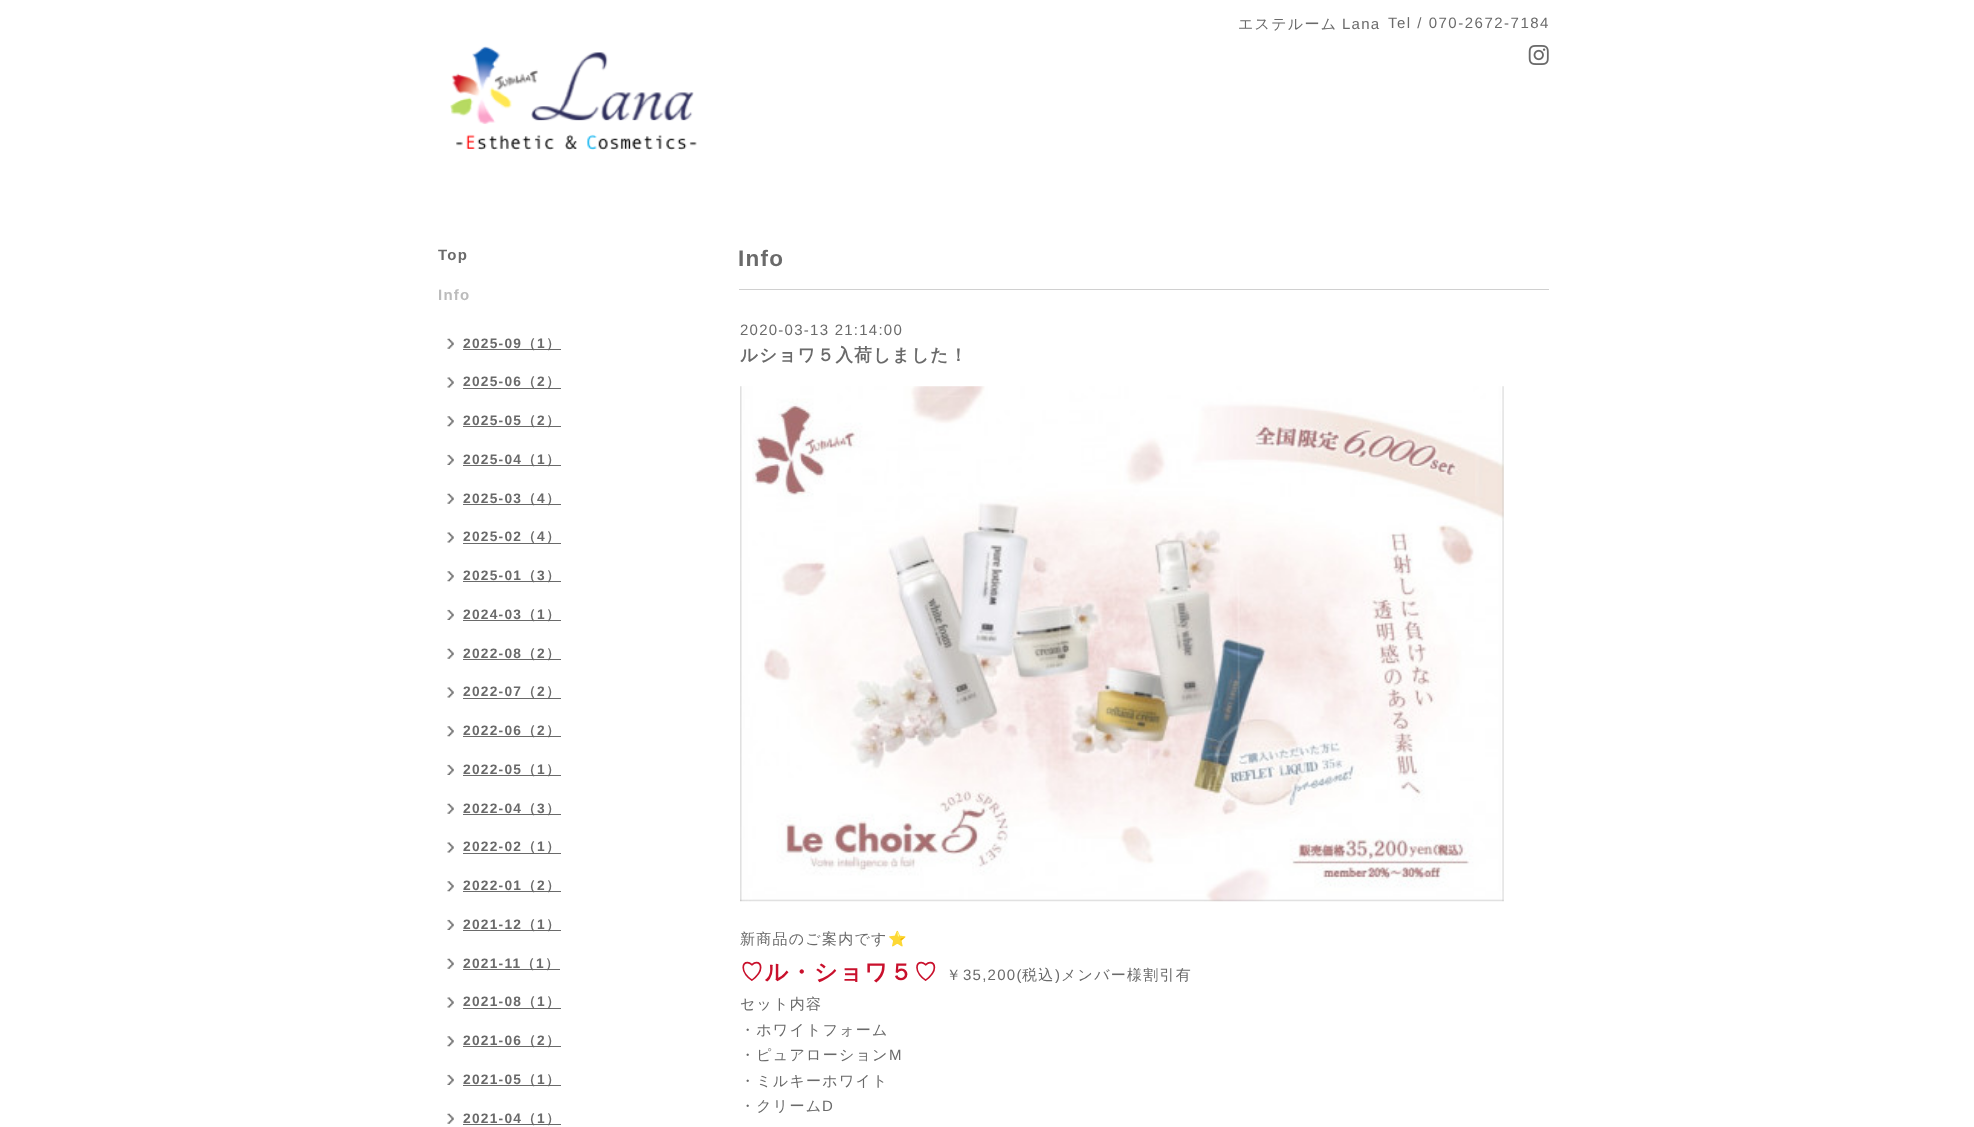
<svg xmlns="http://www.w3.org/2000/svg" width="1974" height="1127">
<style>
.a{font:500 15px WenQuanYi Zen Hei;letter-spacing:1.25px;fill:#6a6a6a}
.b{font:15px Liberation Sans;letter-spacing:1.25px;fill:#6a6a6a}
.c{font:15px Liberation Sans;letter-spacing:1.5px;fill:#6a6a6a}
.d{font:bold 15px Liberation Sans;letter-spacing:1.25px;fill:#6a6a6a}
.e{font:bold 15px Liberation Sans;letter-spacing:1.25px;fill:#bcbcbc}
.f{font:bold 13.75px Liberation Sans;letter-spacing:1.25px;fill:#6a6a6a}
.g{font:bold 13.75px WenQuanYi Zen Hei;letter-spacing:1.25px;fill:#6a6a6a}
.h{font:bold 22.5px Liberation Sans;letter-spacing:1.25px;fill:#6a6a6a}
.i{font:bold 17.5px WenQuanYi Zen Hei;letter-spacing:1.25px;fill:#6a6a6a}
.j{font:15px Noto Color Emoji;letter-spacing:1.25px;fill:#6a6a6a}
.k{font:bold 23.25px WenQuanYi Zen Hei;letter-spacing:1.25px;fill:#c9102c}
</style>
<rect width="100%" height="100%" fill="#fff"/>
<image href="1.png" x="1528" y="45" width="21" height="20"/>
<image href="2.png" x="450" y="46" width="247" height="104"/>
<image href="3.png" x="447" y="338" width="7" height="11"/>
<path fill="#6a6a6a" d="M463 349h98v1H463z"/>
<image href="4.png" x="447" y="377" width="7" height="11"/>
<path fill="#6a6a6a" d="M463 388h98v1H463z"/>
<image href="5.png" x="447" y="416" width="7" height="11"/>
<path fill="#6a6a6a" d="M463 426h98v1H463z"/>
<image href="6.png" x="447" y="454" width="7" height="11"/>
<path fill="#6a6a6a" d="M463 465h98v1H463z"/>
<image href="3.png" x="447" y="493" width="7" height="11"/>
<path fill="#6a6a6a" d="M463 504h98v1H463z"/>
<image href="4.png" x="447" y="532" width="7" height="11"/>
<path fill="#6a6a6a" d="M463 543h98v1H463z"/>
<image href="5.png" x="447" y="571" width="7" height="11"/>
<path fill="#6a6a6a" d="M463 581h98v1H463z"/>
<image href="6.png" x="447" y="609" width="7" height="11"/>
<path fill="#6a6a6a" d="M463 620h98v1H463z"/>
<image href="3.png" x="447" y="648" width="7" height="11"/>
<path fill="#6a6a6a" d="M463 659h98v1H463z"/>
<image href="4.png" x="447" y="687" width="7" height="11"/>
<path fill="#6a6a6a" d="M463 698h98v1H463z"/>
<image href="5.png" x="447" y="726" width="7" height="11"/>
<path fill="#6a6a6a" d="M463 736h98v1H463z"/>
<image href="6.png" x="447" y="764" width="7" height="11"/>
<path fill="#6a6a6a" d="M463 775h98v1H463z"/>
<image href="3.png" x="447" y="803" width="7" height="11"/>
<path fill="#6a6a6a" d="M463 814h98v1H463z"/>
<image href="4.png" x="447" y="842" width="7" height="11"/>
<path fill="#6a6a6a" d="M463 853h98v1H463z"/>
<image href="5.png" x="447" y="881" width="7" height="11"/>
<path fill="#6a6a6a" d="M463 891h98v1H463z"/>
<image href="6.png" x="447" y="919" width="7" height="11"/>
<path fill="#6a6a6a" d="M463 930h98v1H463z"/>
<image href="3.png" x="447" y="958" width="7" height="11"/>
<path fill="#6a6a6a" d="M463 969h97v1H463z"/>
<image href="4.png" x="447" y="997" width="7" height="11"/>
<path fill="#6a6a6a" d="M463 1008h98v1H463z"/>
<image href="5.png" x="447" y="1036" width="7" height="11"/>
<path fill="#6a6a6a" d="M463 1046h98v1H463z"/>
<image href="6.png" x="447" y="1074" width="7" height="11"/>
<path fill="#6a6a6a" d="M463 1085h98v1H463z"/>
<image href="3.png" x="447" y="1113" width="7" height="11"/>
<path fill="#6a6a6a" d="M463 1124h98v1H463z"/>
<path fill="#d0d0d0" d="M739 289h810v1H739z"/>
<image href="7.png" x="740" y="386" width="764" height="516"/>
<text class="a" x="1238" y="29">エステルーム</text>
<text class="b" x="1342" y="29">Lana</text>
<text class="c" x="1388" y="28">Tel / 070-2672-7184</text>
<text class="d" x="438" y="260">Top</text>
<text class="e" x="438" y="300">Info</text>
<text class="f" x="463" y="348">2025-09</text>
<text class="g" x="522" y="348">（</text>
<text class="f" x="537" y="348">1</text>
<text class="g" x="546" y="348">）</text>
<text class="f" x="463" y="386">2025-06</text>
<text class="g" x="522" y="386">（</text>
<text class="f" x="537" y="386">2</text>
<text class="g" x="546" y="386">）</text>
<text class="f" x="463" y="425">2025-05</text>
<text class="g" x="522" y="425">（</text>
<text class="f" x="537" y="425">2</text>
<text class="g" x="546" y="425">）</text>
<text class="f" x="463" y="464">2025-04</text>
<text class="g" x="522" y="464">（</text>
<text class="f" x="537" y="464">1</text>
<text class="g" x="546" y="464">）</text>
<text class="f" x="463" y="503">2025-03</text>
<text class="g" x="522" y="503">（</text>
<text class="f" x="537" y="503">4</text>
<text class="g" x="546" y="503">）</text>
<text class="f" x="463" y="541">2025-02</text>
<text class="g" x="522" y="541">（</text>
<text class="f" x="537" y="541">4</text>
<text class="g" x="546" y="541">）</text>
<text class="f" x="463" y="580">2025-01</text>
<text class="g" x="522" y="580">（</text>
<text class="f" x="537" y="580">3</text>
<text class="g" x="546" y="580">）</text>
<text class="f" x="463" y="619">2024-03</text>
<text class="g" x="522" y="619">（</text>
<text class="f" x="537" y="619">1</text>
<text class="g" x="546" y="619">）</text>
<text class="f" x="463" y="658">2022-08</text>
<text class="g" x="522" y="658">（</text>
<text class="f" x="537" y="658">2</text>
<text class="g" x="546" y="658">）</text>
<text class="f" x="463" y="696">2022-07</text>
<text class="g" x="522" y="696">（</text>
<text class="f" x="537" y="696">2</text>
<text class="g" x="546" y="696">）</text>
<text class="f" x="463" y="735">2022-06</text>
<text class="g" x="522" y="735">（</text>
<text class="f" x="537" y="735">2</text>
<text class="g" x="546" y="735">）</text>
<text class="f" x="463" y="774">2022-05</text>
<text class="g" x="522" y="774">（</text>
<text class="f" x="537" y="774">1</text>
<text class="g" x="546" y="774">）</text>
<text class="f" x="463" y="813">2022-04</text>
<text class="g" x="522" y="813">（</text>
<text class="f" x="537" y="813">3</text>
<text class="g" x="546" y="813">）</text>
<text class="f" x="463" y="851">2022-02</text>
<text class="g" x="522" y="851">（</text>
<text class="f" x="537" y="851">1</text>
<text class="g" x="546" y="851">）</text>
<text class="f" x="463" y="890">2022-01</text>
<text class="g" x="522" y="890">（</text>
<text class="f" x="537" y="890">2</text>
<text class="g" x="546" y="890">）</text>
<text class="f" x="463" y="929">2021-12</text>
<text class="g" x="522" y="929">（</text>
<text class="f" x="537" y="929">1</text>
<text class="g" x="546" y="929">）</text>
<text class="f" x="463" y="968">2021-11</text>
<text class="g" x="521" y="968">（</text>
<text class="f" x="536" y="968">1</text>
<text class="g" x="545" y="968">）</text>
<text class="f" x="463" y="1006">2021-08</text>
<text class="g" x="522" y="1006">（</text>
<text class="f" x="537" y="1006">1</text>
<text class="g" x="546" y="1006">）</text>
<text class="f" x="463" y="1045">2021-06</text>
<text class="g" x="522" y="1045">（</text>
<text class="f" x="537" y="1045">2</text>
<text class="g" x="546" y="1045">）</text>
<text class="f" x="463" y="1084">2021-05</text>
<text class="g" x="522" y="1084">（</text>
<text class="f" x="537" y="1084">1</text>
<text class="g" x="546" y="1084">）</text>
<text class="f" x="463" y="1123">2021-04</text>
<text class="g" x="522" y="1123">（</text>
<text class="f" x="537" y="1123">1</text>
<text class="g" x="546" y="1123">）</text>
<text class="h" x="738" y="266">Info</text>
<text class="b" x="740" y="335">2020-03-13 21:14:00</text>
<text class="i" x="740" y="361">ルショワ５入荷しました！</text>
<text class="a" x="740" y="944">新商品のご案内です</text>
<text class="j" x="888" y="944">⭐️</text>
<text class="k" x="740" y="980">♡ル・ショワ５♡</text>
<text class="a" x="946" y="980">￥</text>
<text class="b" x="963" y="980">35,200(</text>
<text class="a" x="1022" y="980">税込</text>
<text class="b" x="1055" y="980">)</text>
<text class="a" x="1061" y="980">メンバー様割引有</text>
<text class="a" x="740" y="1009">セット内容</text>
<text class="a" x="740" y="1035">・ホワイトフォーム</text>
<text class="a" x="740" y="1060">・ピュアローション</text>
<text class="b" x="889" y="1060">M</text>
<text class="a" x="740" y="1086">・ミルキーホワイト</text>
<text class="a" x="740" y="1111">・クリーム</text>
<text class="b" x="822" y="1111">D</text>
</svg>
